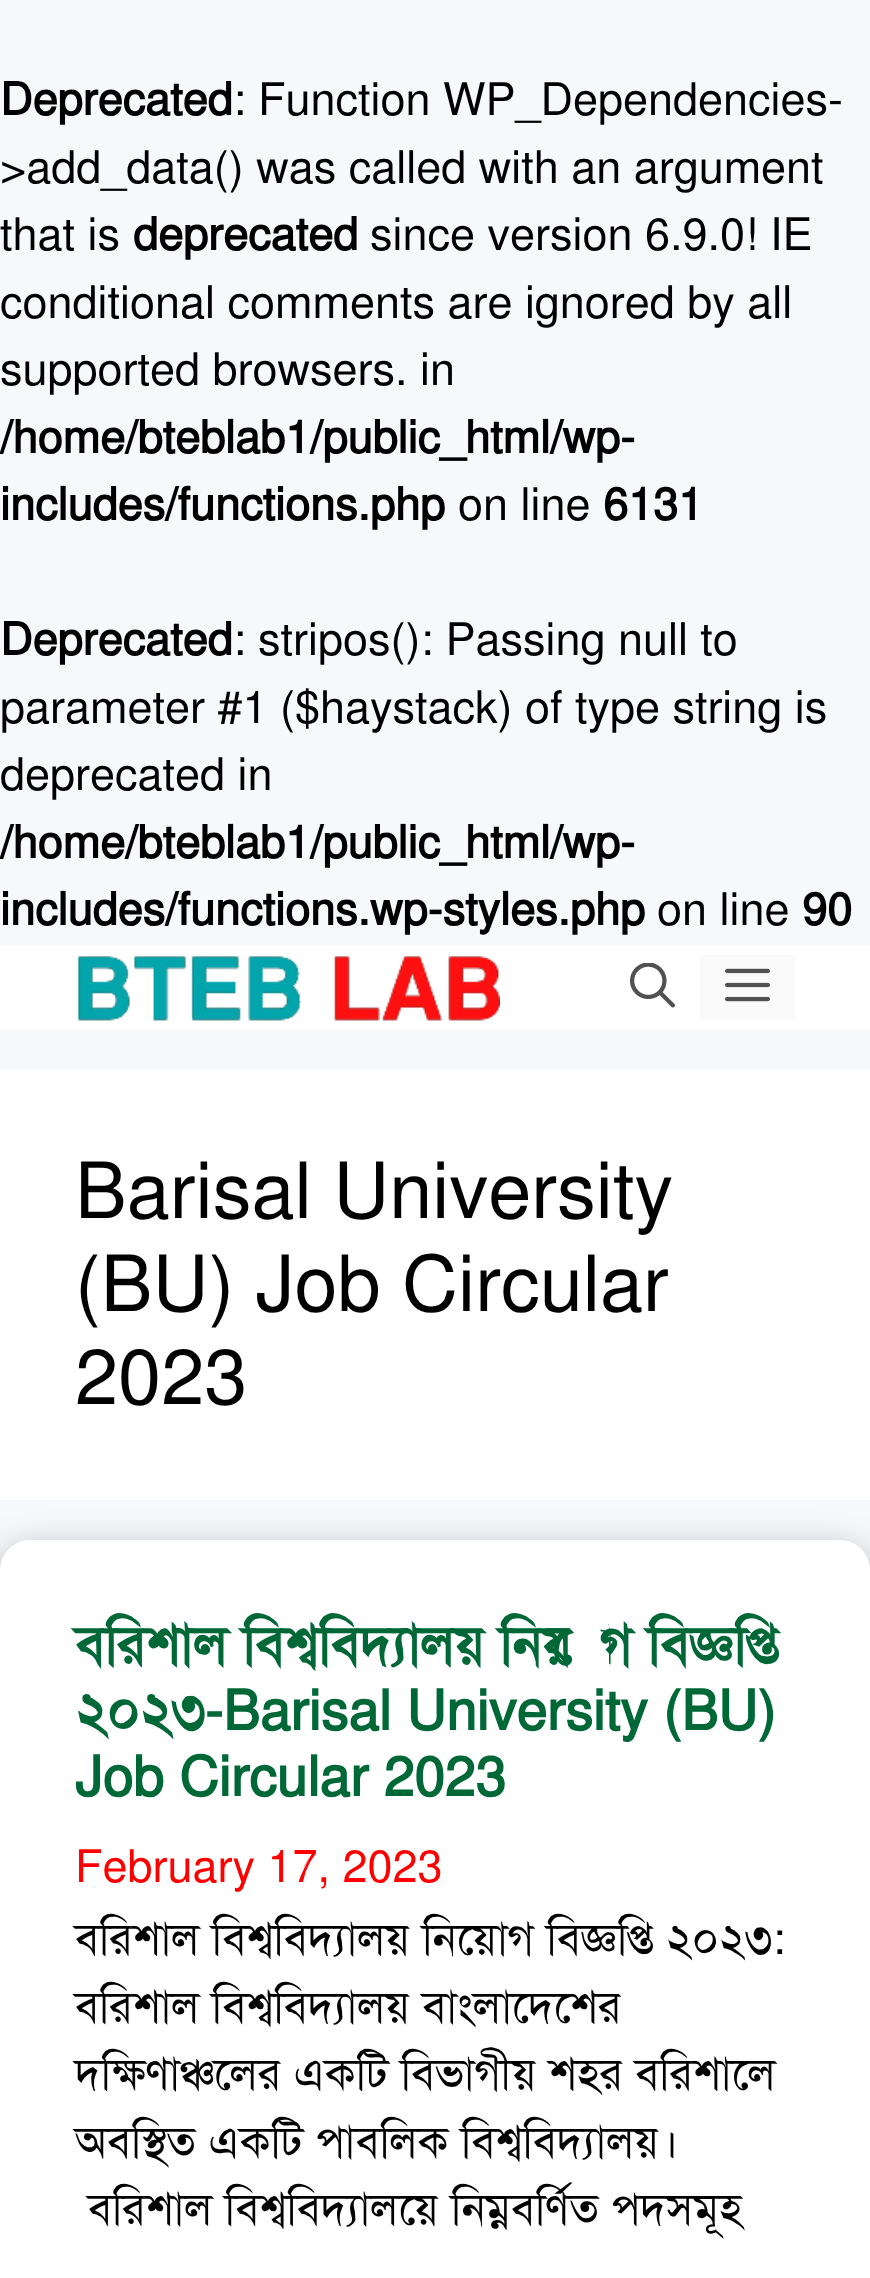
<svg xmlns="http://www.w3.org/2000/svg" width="870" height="2278">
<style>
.a{font:bold 45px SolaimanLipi;fill:#000}
.b{font:45px SolaimanLipi;fill:#000}
.c{font:77.5px SolaimanLipi;fill:#000}
.d{font:bold 55px SolaimanLipi;fill:#006837}
.e{font:45px SolaimanLipi;fill:#f00}
</style>
<rect width="100%" height="100%" fill="#f7f8f9"/>
<path fill="#fff" d="M0 945h870v85H0z"/>
<image href="1.png" x="78" y="956" width="422" height="65"/>
<image href="2.png" x="630" y="963" width="45" height="45"/>
<path fill="#fafafa" d="M700 955h95v65H700z"/>
<image href="3.png" x="725" y="968" width="45" height="34"/>
<path fill="#fff" d="M0 1070h870v430H0z"/>
<rect fill="#00000059" filter="blur(19px)" y="1553" width="870" height="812" rx="30"/>
<rect fill="#fff" y="1540" width="870" height="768" rx="30"/>
<text class="a" x="0" y="115">Deprecated</text>
<text class="b" x="233" y="115">: Function WP_Dependencies-</text>
<text class="b" x="0" y="183">&gt;add_data() was called with an argument</text>
<text class="b" x="0" y="250">that is</text>
<text class="a" x="133" y="250">deprecated</text>
<text class="b" x="370" y="250">since version 6.9.0! IE</text>
<text class="b" x="0" y="318">conditional comments are ignored by all</text>
<text class="b" x="0" y="385">supported browsers. in</text>
<text class="a" x="0" y="453">/home/bteblab1/public_html/wp-</text>
<text class="a" x="0" y="520">includes/functions.php</text>
<text class="b" x="458" y="520">on line</text>
<text class="a" x="603" y="520">6131</text>
<text class="a" x="0" y="655">Deprecated</text>
<text class="b" x="233" y="655">: stripos(): Passing null to</text>
<text class="b" x="0" y="723">parameter #1 ($haystack) of type string is</text>
<text class="b" x="0" y="790">deprecated in</text>
<text class="a" x="0" y="858">/home/bteblab1/public_html/wp-</text>
<text class="a" x="0" y="925">includes/functions.wp-styles.php</text>
<text class="b" x="657" y="925">on line</text>
<text class="a" x="802" y="925">90</text>
<text class="c" x="75" y="1218">Barisal University</text>
<text class="c" x="75" y="1311">(BU) Job Circular</text>
<text class="c" x="75" y="1404">2023</text>
<text class="d" x="75" y="1664">বরিশাল বিশ্ববিদ্যালয় নিয়োগ বিজ্ঞপ্তি</text>
<text class="d" x="75" y="1730">২০২৩-Barisal University (BU)</text>
<text class="d" x="75" y="1796">Job Circular 2023</text>
<text class="e" x="75" y="1882">February 17, 2023</text>
<text class="b" x="75" y="1954">বরিশাল বিশ্ববিদ্যালয় নিয়োগ বিজ্ঞপ্তি ২০২৩:</text>
<text class="b" x="75" y="2022">বরিশাল বিশ্ববিদ্যালয় বাংলাদেশের</text>
<text class="b" x="75" y="2089">দক্ষিণাঞ্চলের একটি বিভাগীয় শহর বরিশালে</text>
<text class="b" x="75" y="2157">অবস্থিত একটি পাবলিক বিশ্ববিদ্যালয়।</text>
<text class="b" x="88" y="2224">বরিশাল বিশ্ববিদ্যালয়ে নিম্নবর্ণিত পদসমূহ</text>
</svg>
